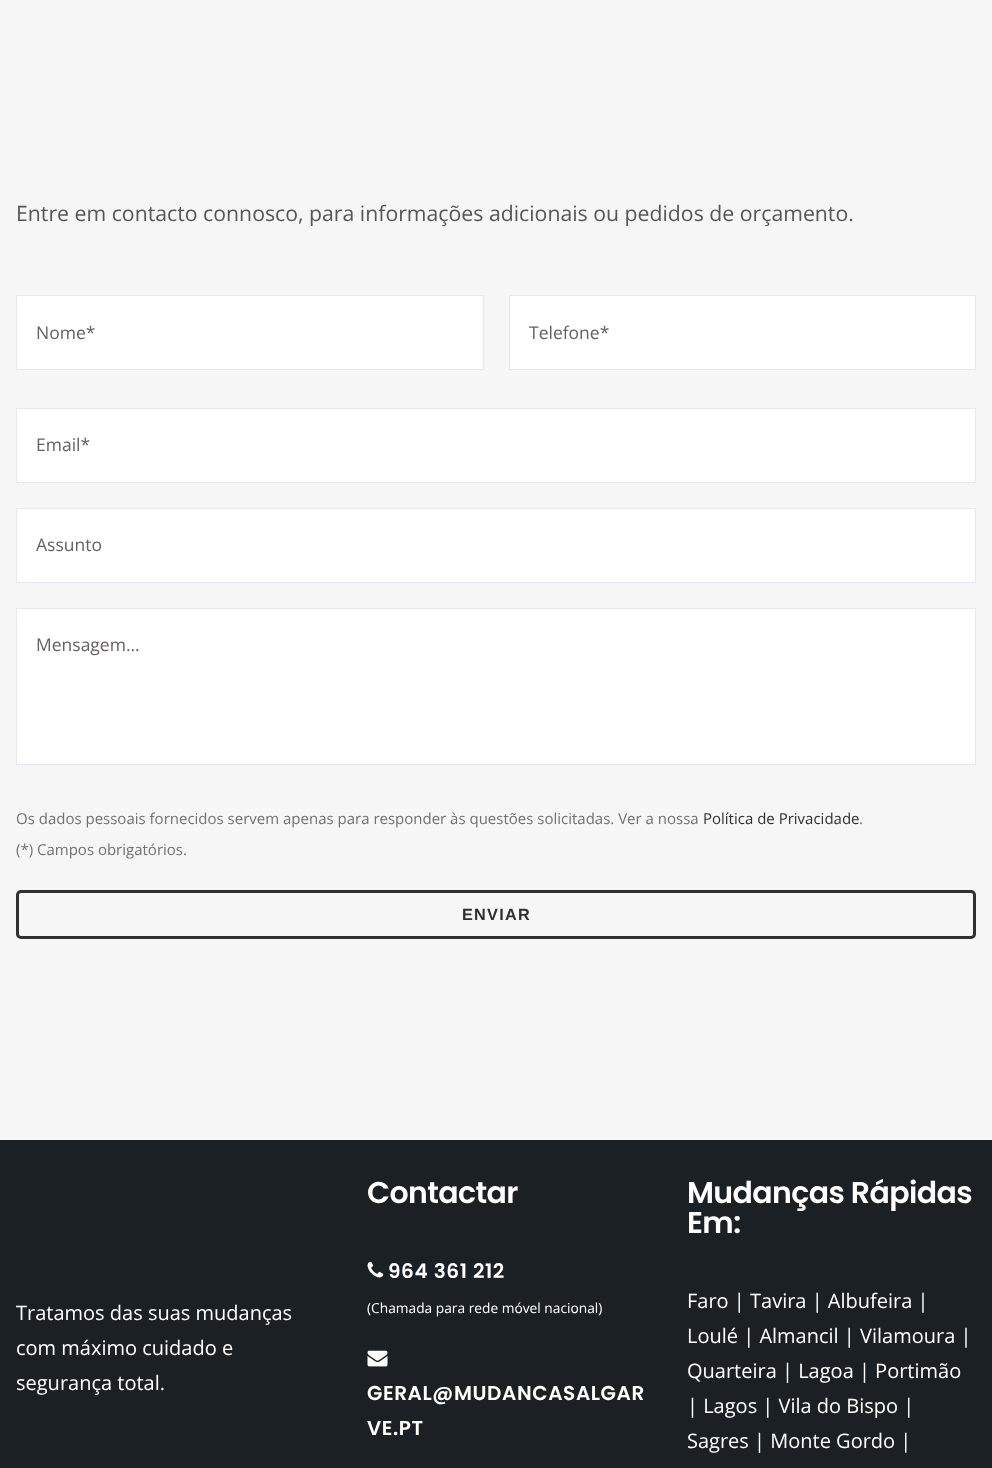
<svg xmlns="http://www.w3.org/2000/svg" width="992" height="1468">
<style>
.a{font:21.25px Open Sans;fill:#585555}
.b{font:17.5px Open Sans;fill:#656161}
.c{font:15px Open Sans;fill:#717171}
.d{font:15px Open Sans;fill:#303030}
.e{font:bold 16.25px Liberation Sans;letter-spacing:1.25px;fill:#303030}
.f{font:20px Open Sans;fill:#fff}
.g{font:600 30px Poppins;letter-spacing:-0.6px;fill:#fff}
.h{font:600 20px Poppins;letter-spacing:0.6px;fill:#fff}
.i{font:13.75px Open Sans;fill:#fff}
</style>
<rect width="100%" height="100%" fill="#f6f6f6"/>
<path fill="#fff" stroke="#e7e7f2" d="M16.5 295.5h467v74H16.5z"/>
<path fill="#fff" stroke="#e7e7f2" d="M509.5 295.5h466v74H509.5z"/>
<path fill="#fff" stroke="#e7e7f2" d="M16.5 408.5h959v74H16.5z"/>
<path fill="#fff" stroke="#e7e7f2" d="M16.5 508.5h959v74H16.5z"/>
<path fill="#fff" stroke="#e7e7f2" d="M16.5 608.5h959v156H16.5z"/>
<rect fill="none" stroke="#303030" stroke-width="3" x="17.5" y="891.5" width="957" height="46" rx="3.5"/>
<path fill="#1b2024" d="M0 1140h992v328H0z"/>
<image href="1.png" x="367" y="1261" width="17" height="17"/>
<image href="2.png" x="367" y="1350" width="21" height="17"/>
<text class="a" x="16" y="221">Entre em contacto connosco, para informações adicionais ou pedidos de orçamento.</text>
<text class="b" x="36" y="339">Nome*</text>
<text class="b" x="529" y="339">Telefone*</text>
<text class="b" x="36" y="451">Email*</text>
<text class="b" x="36" y="551">Assunto</text>
<text class="b" x="36" y="651">Mensagem...</text>
<text class="c" x="16" y="824">Os dados pessoais fornecidos servem apenas para responder às questões solicitadas. Ver a nossa</text>
<text class="d" x="703" y="824">Política de Privacidade</text>
<text class="c" x="859" y="824">.</text>
<text class="c" x="16" y="855">(*) Campos obrigatórios.</text>
<text class="e" x="462" y="920">ENVIAR</text>
<text class="f" x="16" y="1320">Tratamos das suas mudanças</text>
<text class="f" x="16" y="1355">com máximo cuidado e</text>
<text class="f" x="16" y="1390">segurança total.</text>
<text class="g" x="367" y="1203">Contactar</text>
<text class="h" x="388" y="1278">964 361 212</text>
<text class="i" x="367" y="1313">(Chamada para rede móvel nacional)</text>
<text class="h" x="367" y="1400">GERAL@MUDANCASALGAR</text>
<text class="h" x="367" y="1435">VE.PT</text>
<text class="g" x="687" y="1203">Mudanças Rápidas</text>
<text class="g" x="687" y="1233">Em:</text>
<text class="f" x="687" y="1308">Faro | Tavira | Albufeira |</text>
<text class="f" x="687" y="1343">Loulé | Almancil | Vilamoura |</text>
<text class="f" x="687" y="1378">Quarteira | Lagoa | Portimão</text>
<text class="f" x="687" y="1413">| Lagos | Vila do Bispo |</text>
<text class="f" x="687" y="1448">Sagres | Monte Gordo |</text>
</svg>
